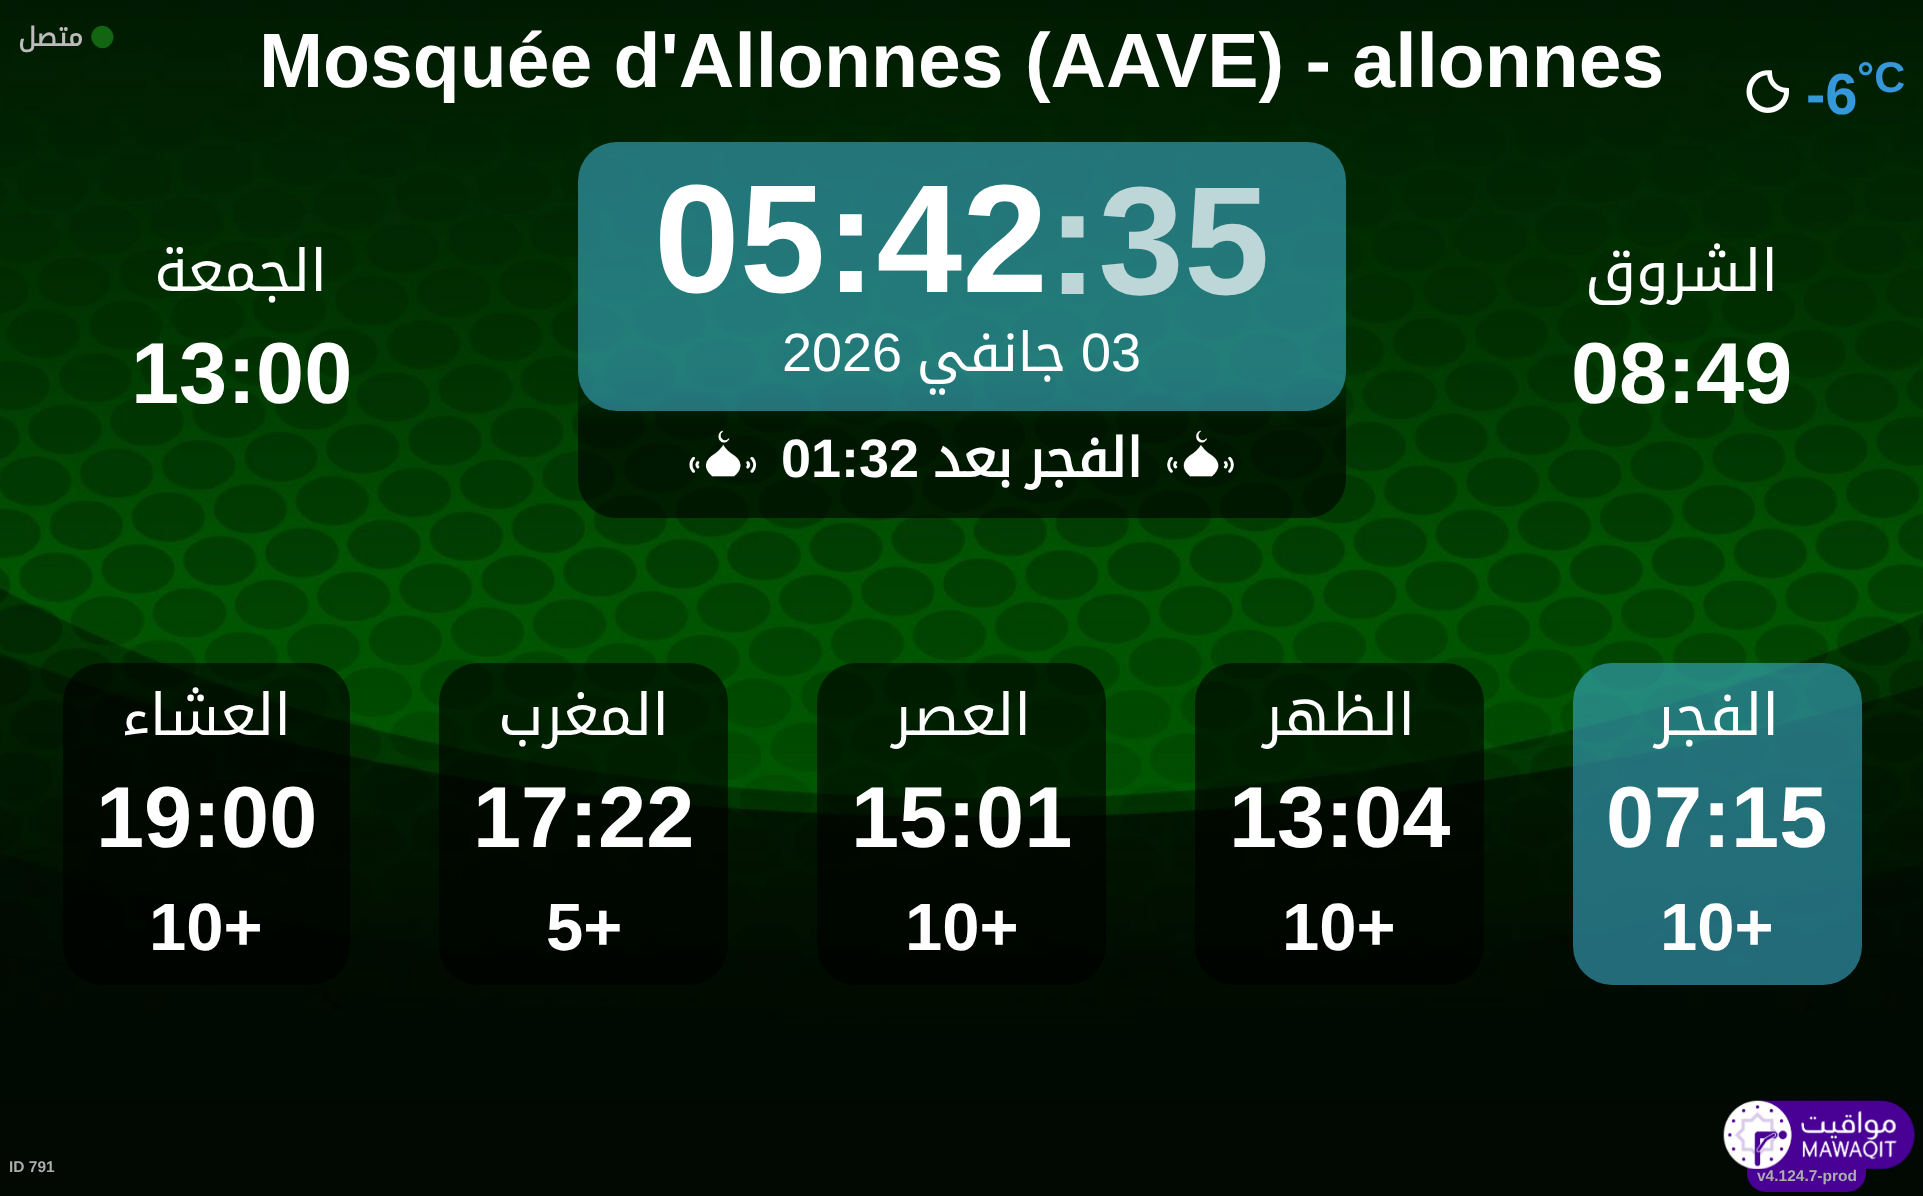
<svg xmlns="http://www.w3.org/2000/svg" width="1923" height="1196">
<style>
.a{font:bold 26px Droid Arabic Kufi;direction:rtl;fill:#bdbbbb}
.b{font:bold 76.9px Liberation Sans;fill:#fff}
.c{font:bold 58px Liberation Sans;fill:#3498db}
.d{font:bold 43px Liberation Sans;fill:#3498db}
.e{font:58px Droid Arabic Kufi;direction:rtl;fill:#fff}
.f{font:bold 86.5px Liberation Sans;fill:#fff}
.g{font:bold 154px Liberation Sans;fill:#fff}
.h{font:bold 154px Liberation Sans;fill:#bdd6d7}
.i{font:54px Liberation Sans;fill:#fff}
.j{font:54px Droid Arabic Kufi;direction:rtl;fill:#fff}
.k{font:bold 54px Liberation Sans;fill:#fff}
.l{font:bold 54px Droid Arabic Kufi;direction:rtl;fill:#fff}
.m{font:bold 67px Liberation Sans;fill:#fff}
.n{font:bold 15.5px Liberation Sans;fill:#adadad}
</style>
<rect width="100%" height="100%" fill="#fff"/>
<image href="1.png" x="0" y="0" width="1923" height="1196"/>
<path fill="#126611" d="M94.5 29c10.5-10 26 5.5 15.5 16c-10 10-25.5-5.5-15.5-16z"/>
<image href="2.png" x="1746" y="70" width="43" height="43"/>
<rect fill="#3babc999" x="578" y="142" width="768" height="269" rx="39"/>
<image href="3.png" x="689" y="430" width="67" height="47"/>
<image href="4.png" x="1167" y="430" width="67" height="47"/>
<rect fill="#00000099" x="63" y="663" width="287" height="322" rx="39"/>
<rect fill="#00000099" x="439" y="663" width="289" height="322" rx="39"/>
<rect fill="#00000099" x="817" y="663" width="289" height="322" rx="39"/>
<rect fill="#00000099" x="1195" y="663" width="289" height="322" rx="39"/>
<rect fill="#3babc999" x="1573" y="663" width="289" height="322" rx="39"/>
<path fill="#490094" d="M1747 1162h119v11c0 10.5-8.5 19-19 19h-81c-10.5 0-19-8.5-19-19z"/>
<image href="5.png" x="1723" y="1100" width="192" height="69"/>
<text class="a" x="83" y="46">متصل</text>
<text class="b" x="259" y="87">Mosquée d'Allonnes (AAVE) - allonnes</text>
<text class="c" x="1806" y="114">-6</text>
<text class="d" x="1857" y="92">°C</text>
<text class="e" x="327" y="291">الجمعة</text>
<text class="f" x="131" y="403">13:00</text>
<text class="g" x="654" y="292">05:42</text>
<text class="h" x="1047" y="294">:35</text>
<text class="i" x="782" y="371">2026</text>
<text class="j" x="1066" y="371">جانفي</text>
<text class="i" x="1081" y="371">03</text>
<text class="k" x="781" y="477">01:32</text>
<text class="l" x="1012" y="477">بعد</text>
<text class="l" x="1142" y="477">الفجر</text>
<text class="e" x="1778" y="291">الشروق</text>
<text class="f" x="1571" y="403">08:49</text>
<text class="e" x="291" y="735">العشاء</text>
<text class="f" x="96" y="847">19:00</text>
<text class="m" x="149" y="950">10+</text>
<text class="e" x="669" y="735">المغرب</text>
<text class="f" x="473" y="847">17:22</text>
<text class="m" x="546" y="950">5+</text>
<text class="e" x="1031" y="735">العصر</text>
<text class="f" x="851" y="847">15:01</text>
<text class="m" x="905" y="950">10+</text>
<text class="e" x="1415" y="735">الظهر</text>
<text class="f" x="1229" y="847">13:04</text>
<text class="m" x="1282" y="950">10+</text>
<text class="e" x="1779" y="735">الفجر</text>
<text class="f" x="1606" y="847">07:15</text>
<text class="m" x="1660" y="950">10+</text>
<text class="n" x="9" y="1172">ID 791</text>
<text class="n" x="1757" y="1181">v4.124.7-prod</text>
</svg>
